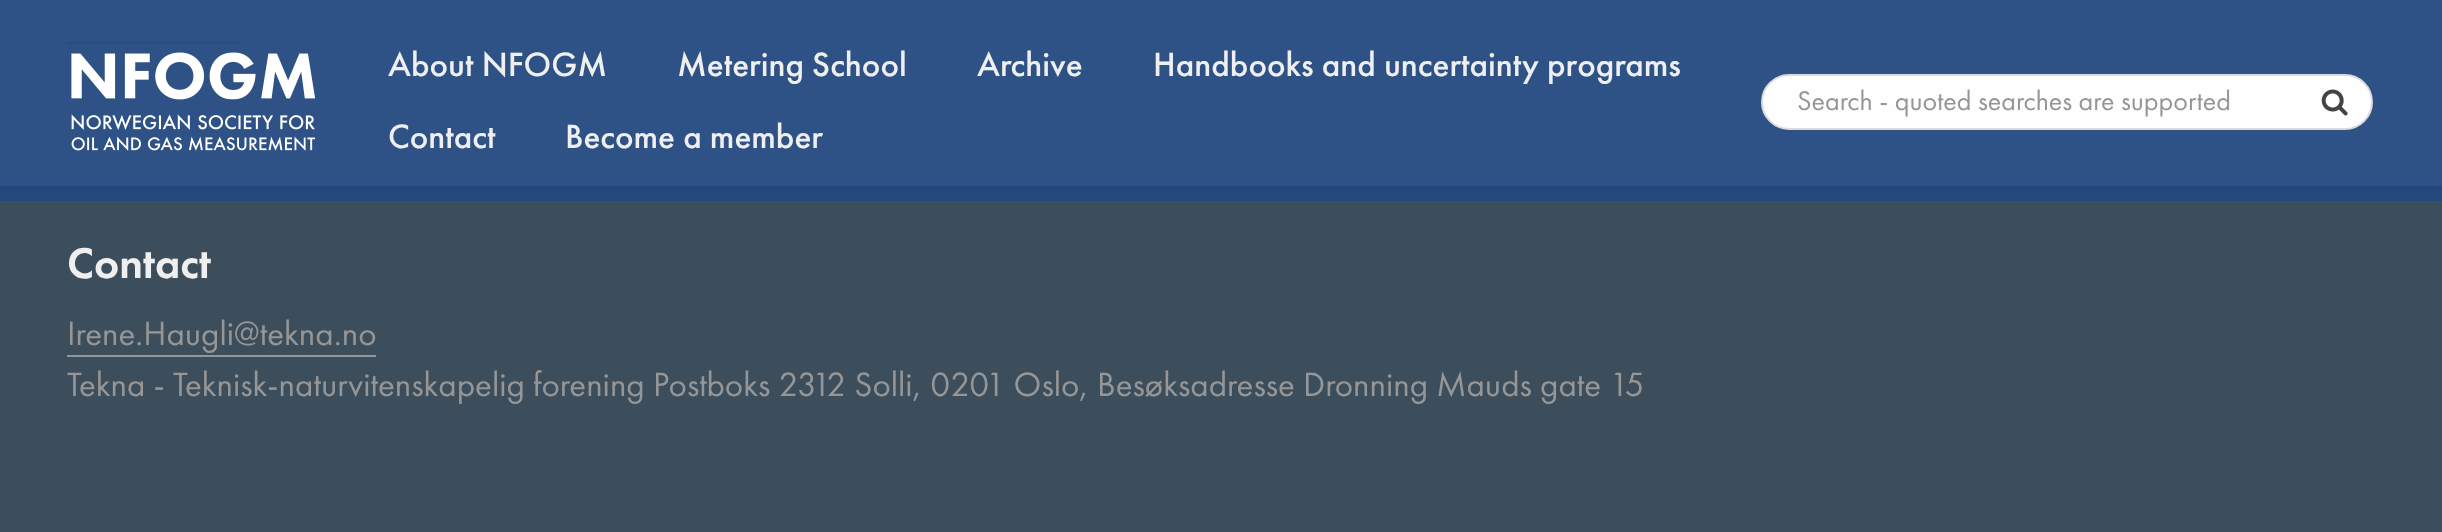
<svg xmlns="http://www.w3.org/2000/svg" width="2442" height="532">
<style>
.a{font:500 35px 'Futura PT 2';fill:#efefef}
.b{font:28px Futura PT;fill:#969696}
.c{font:500 44.5px Futura PT;fill:#efefef}
.d{font:35px Futura PT;fill:#969696}
</style>
<rect width="100%" height="100%" fill="#2e5186"/>
<path fill="#294d83" d="M67 42h175v2H67z"/>
<image href="1.png" x="71" y="52" width="245" height="99"/>
<rect fill="#fefefe" stroke="#dadada" stroke-width="2" x="1762" y="75" width="610" height="54" rx="27"/>
<image href="2.png" x="2321" y="89" width="27" height="27"/>
<path fill="#3c4e5c" d="M0 201h2442v331H0z"/>
<path fill="#24487e" d="M0 186h2442v15H0z"/>
<path fill="#969696" d="M67 355h309v2H67z"/>
<text class="a" x="388" y="76">About NFOGM</text>
<text class="a" x="677" y="76">Metering School</text>
<text class="a" x="977" y="76">Archive</text>
<text class="a" x="1153" y="76">Handbooks and uncertainty programs</text>
<text class="a" x="388" y="148">Contact</text>
<text class="a" x="565" y="148">Become a member</text>
<text class="b" x="1797" y="110">Search - quoted searches are supported</text>
<text class="c" x="67" y="278">Contact</text>
<text class="d" x="67" y="345">Irene.Haugli@tekna.no</text>
<text class="d" x="67" y="396">Tekna - Teknisk-naturvitenskapelig forening Postboks 2312 Solli, 0201 Oslo, Besøksadresse Dronning Mauds gate 15</text>
</svg>
